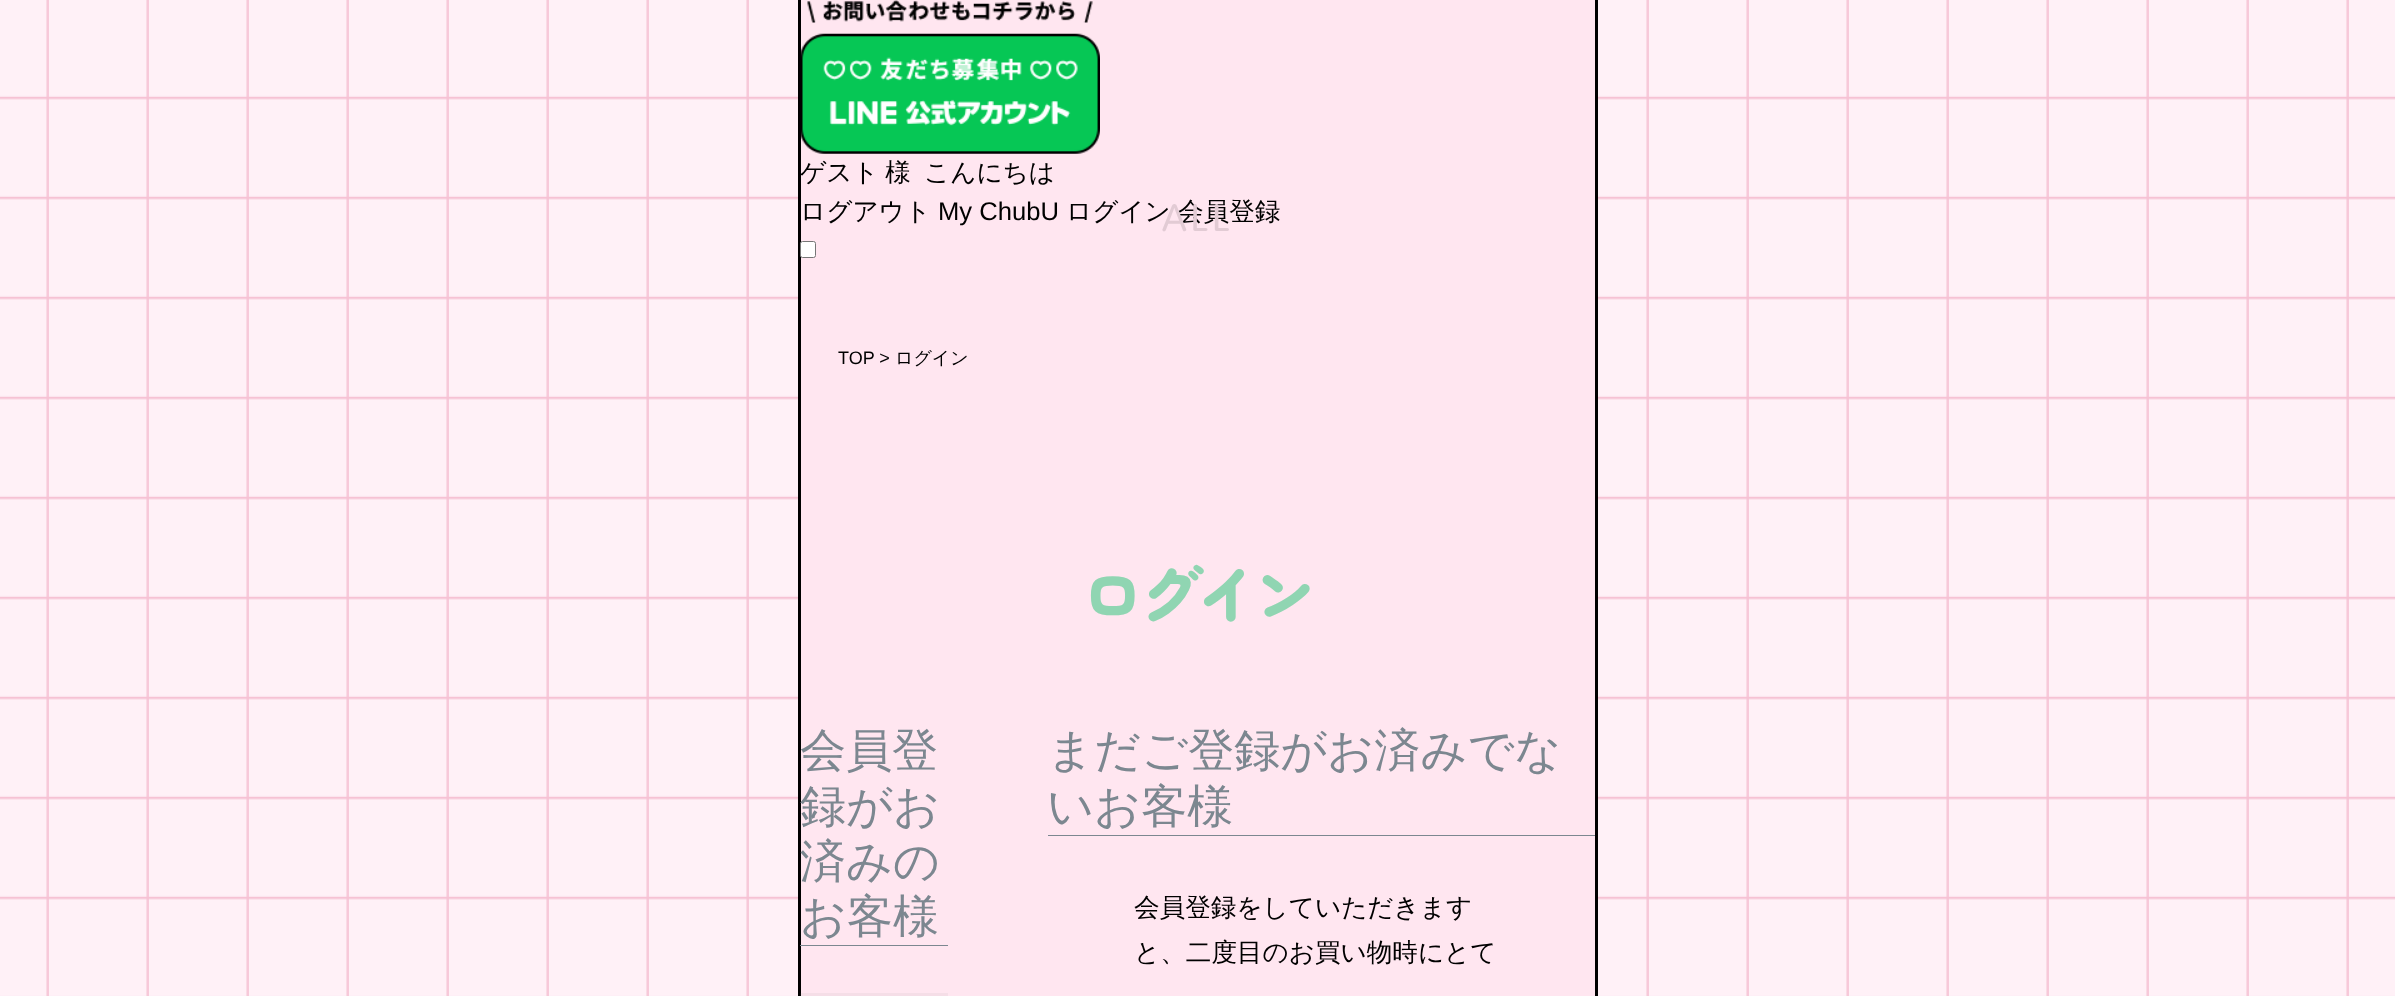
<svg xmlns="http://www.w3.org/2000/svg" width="2395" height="996">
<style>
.a{font:500 25.6px WenQuanYi Zen Hei;fill:#000}
.b{font:25.6px Liberation Sans;fill:#000}
.c{font:38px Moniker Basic;letter-spacing:2.5px;fill:#e2cbd4}
.d{font:18px Liberation Sans;fill:#000}
.e{font:500 18px WenQuanYi Zen Hei;fill:#000}
.f{font:900 61.5px Zen Maru Gothic;letter-spacing:-4px;fill:#90d5b2}
.g{font:500 46px WenQuanYi Zen Hei;fill:#7c8790}
</style>
<rect width="100%" height="100%" fill="#fff"/>
<image href="1.png" x="0" y="0" width="2395" height="996"/>
<path fill="#ffe6f0" d="M801 0h794v996H801z"/>
<path fill="#000" d="M1595 0h3v996H1595z"/>
<path fill="#000" d="M798 0h3v996H798z"/>
<image href="2.png" x="801" y="0" width="299" height="154"/>
<rect fill="#fff" stroke="#767676" x="800.5" y="241.5" width="15" height="16" rx="2"/>
<path fill="#7c8790" d="M800 945h148v1H800z"/>
<path fill="#7e7e7e14" d="M800 993h148v3H800z"/>
<path fill="#7c8790" d="M1048 835h547v1H1048z"/>
<text class="a" x="800" y="181" word-spacing="-1">ゲスト 様</text>
<text class="a" x="924" y="181">こんにちは</text>
<text class="a" x="800" y="220">ログアウト</text>
<text class="b" x="938" y="220">My ChubU</text>
<text class="a" x="1066" y="220">ログイン</text>
<text class="a" x="1178" y="220">会員登録</text>
<text class="c" x="1161" y="231">ALL</text>
<text class="d" x="838" y="364">TOP &gt;</text>
<text class="e" x="895" y="364">ログイン</text>
<text class="f" x="1082" y="618">ログイン</text>
<text class="g" x="800" y="766">会員登</text>
<text class="g" x="800" y="822">録がお</text>
<text class="g" x="800" y="877">済みの</text>
<text class="g" x="800" y="932">お客様</text>
<text class="g" x="1047" y="766">まだご登録がお済みでな</text>
<text class="g" x="1047" y="822">いお客様</text>
<text class="a" x="1134" y="916">会員登録をしていただきます</text>
<text class="a" x="1134" y="961">と、二度目のお買い物時にとて</text>
</svg>
